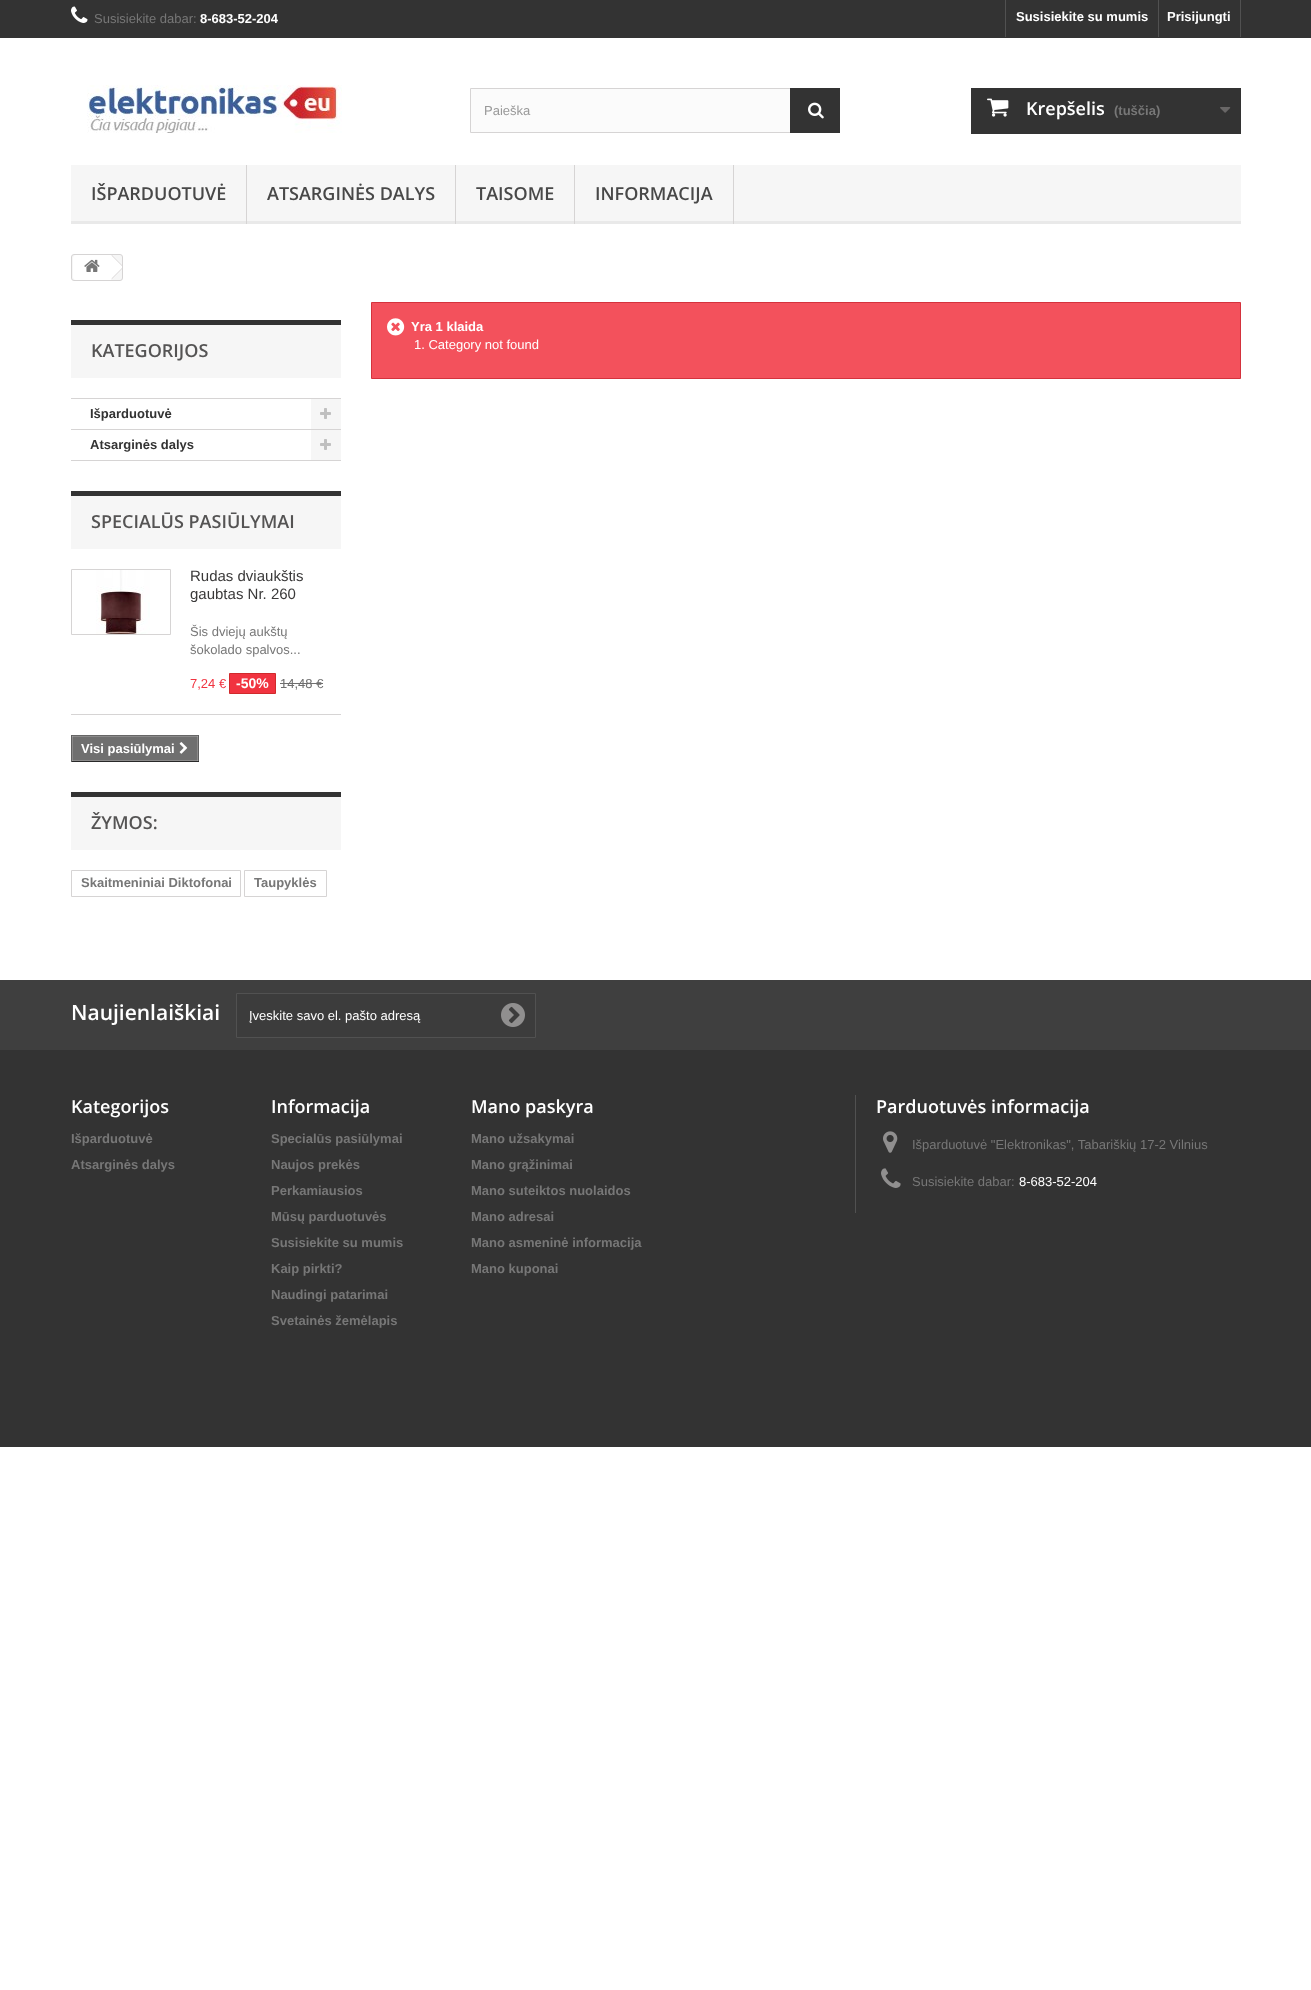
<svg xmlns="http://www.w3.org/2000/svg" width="1311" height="1990">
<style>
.a{font:13px Liberation Sans;fill:#777}
.b{font:bold 13px Liberation Sans;fill:#fff}
.c{font:13px Liberation Sans;fill:#999}
.d{font:600 18px Open Sans;fill:#fff}
.e{font:bold 13px Liberation Sans;fill:#777}
.f{font:600 18px Open Sans;fill:#484848}
.g{font:13px Liberation Sans;fill:#fff}
.h{font:600 18px Open Sans;fill:#555454}
.i{font:bold 13px Liberation Sans;fill:#333}
.j{font:15px Liberation Sans;fill:#3a3939}
.k{font:13px Liberation Sans;fill:#f13340}
.l{font:bold 14px Liberation Sans;fill:#fff}
.m{font:13px Liberation Sans;fill:#6f6f6f}
.n{font:600 21px Open Sans;fill:#fff}
</style>
<rect width="100%" height="100%" fill="#fff"/>
<path fill="#333" d="M0 0h1311v38H0z"/>
<image href="1.png" x="71" y="6" width="17" height="17"/>
<path fill="#515151" d="M1005 0h1v37H1005z"/>
<path fill="#515151" d="M1240 0h1v37H1240z"/>
<path fill="#515151" d="M1158 0h1v37H1158z"/>
<image href="2.png" x="87" y="85" width="255" height="48"/>
<path fill="#fbfbfb" d="M471 89h319v43H471z"/>
<path fill="none" stroke="#d6d4d4" d="M470.5 88.5h369v44H470.5z"/>
<path fill="#333" d="M790 88h50v45H790z"/>
<image href="3.png" x="808" y="102" width="16" height="17"/>
<path fill="#333" d="M971 88h270v46H971z"/>
<image href="4.png" x="987" y="98" width="22" height="19"/>
<image href="5.png" x="1220" y="107" width="11" height="6"/>
<path fill="#f6f6f6" d="M71 165h1170v56H71z"/>
<path fill="#e9e9e9" d="M71 221h1170v3H71z"/>
<path fill="#d6d4d4" d="M246 165h1v59H246z"/>
<path fill="#d6d4d4" d="M455 165h1v59H455z"/>
<path fill="#d6d4d4" d="M574 165h1v59H574z"/>
<path fill="#d6d4d4" d="M733 165h1v59H733z"/>
<rect fill="#f6f6f6" stroke="#d6d4d4" x="71.5" y="254.5" width="51" height="26" rx="2.5"/>
<path fill="#fff" d="M76 255h35v25h-35c-1.5 0-3-1.5-3-3v-19c0-1.5 1.5-3 3-3z"/>
<path fill="#fff" d="M113 255.5l9 9v5l-9 9c-1 .5-2 .5-3 0l-10-10c-.5-1-.5-2 0-3l10-10c1-.5 2-.5 3 0z"/>
<image href="6.png" x="84" y="259" width="16" height="13"/>
<path fill="#d6d4d4" d="M112 255l10 10v1l-10.5-10.5zm10 13v1l-10 10l-.5-.5z"/>
<path fill="#f3515c" stroke="#d4323d" d="M371.5 302.5h869v76H371.5z"/>
<image href="7.png" x="387" y="318" width="18" height="18"/>
<path fill="#f6f6f6" d="M71 325h270v53H71z"/>
<path fill="#333" d="M71 320h270v5H71z"/>
<path fill="#d6d4d4" d="M71 398h270v1H71z"/>
<path fill="#d6d4d4" d="M71 429h270v1H71z"/>
<path fill="#f6f6f6" d="M311 399h30v30H311z"/>
<image href="8.png" x="320" y="408" width="11" height="11"/>
<path fill="#d6d4d4" d="M71 460h270v1H71z"/>
<path fill="#f6f6f6" d="M311 430h30v30H311z"/>
<image href="8.png" x="320" y="439" width="11" height="11"/>
<path fill="#f6f6f6" d="M71 496h270v53H71z"/>
<path fill="#333" d="M71 491h270v5H71z"/>
<path fill="#d6d4d4" d="M71 714h270v1H71z"/>
<path fill="none" stroke="#d6d4d4" d="M71.5 569.5h99v65H71.5z"/>
<image href="9.png" x="96" y="570" width="54" height="64"/>
<path fill="#f13340" stroke="#d02a2c" d="M229.5 673.5h46v20H229.5z"/>
<path fill="#6f6f6f" d="M280 683h43v1H280z"/>
<path fill="#666" d="M71 735h128v1H71z"/>
<path fill="#5f5f5f" d="M198 735h1v27H198z"/>
<path fill="#292929" d="M71 761h128v1H71z"/>
<path fill="#5f5f5f" d="M71 735h1v27H71z"/>
<path fill="#6f6f6f" stroke="#8b8a8a" d="M72.5 736.5h125v24H72.5z"/>
<image href="10.png" x="179" y="742" width="9" height="12"/>
<path fill="#f6f6f6" d="M71 797h270v53H71z"/>
<path fill="#333" d="M71 792h270v5H71z"/>
<path fill="none" stroke="#d6d4d4" d="M71.5 870.5h169v26H71.5z"/>
<path fill="none" stroke="#d6d4d4" d="M244.5 870.5h82v26H244.5z"/>
<path fill="#333" d="M0 1050h1311v397H0z"/>
<path fill="#3f3f3f" d="M0 980h1311v70H0z"/>
<path fill="#3c3c3c" stroke="#515151" d="M236.5 993.5h299v44H236.5z"/>
<image href="11.png" x="501" y="1003" width="24" height="24"/>
<path fill="#515151" d="M855 1095h1v118H855z"/>
<image href="12.png" x="883" y="1131" width="15" height="22"/>
<image href="13.png" x="881" y="1168" width="20" height="20"/>
<text class="a" x="94" y="23">Susisiekite dabar:</text>
<text class="b" x="200" y="23">8-683-52-204</text>
<text class="b" x="1016" y="21">Susisiekite su mumis</text>
<text class="b" x="1167" y="21">Prisijungti</text>
<text class="c" x="484" y="115">Paieška</text>
<text class="d" x="1026" y="115">Krepšelis</text>
<text class="e" x="1114" y="115">(tuščia)</text>
<text class="f" x="91" y="200">IŠPARDUOTUVĖ</text>
<text class="f" x="267" y="200">ATSARGINĖS DALYS</text>
<text class="f" x="476" y="200">TAISOME</text>
<text class="f" x="595" y="200">INFORMACIJA</text>
<text class="b" x="411" y="331">Yra 1 klaida</text>
<text class="g" x="414" y="349">1. Category not found</text>
<text class="h" x="91" y="357">KATEGORIJOS</text>
<text class="i" x="90" y="418">Išparduotuvė</text>
<text class="i" x="90" y="449">Atsarginės dalys</text>
<text class="h" x="91" y="528">SPECIALŪS PASIŪLYMAI</text>
<text class="j" x="190" y="581">Rudas dviaukštis</text>
<text class="j" x="190" y="599">gaubtas Nr. 260</text>
<text class="a" x="190" y="636">Šis dviejų aukštų</text>
<text class="a" x="190" y="654">šokolado spalvos...</text>
<text class="k" x="190" y="688">7,24 €</text>
<text class="l" x="236" y="688">-50%</text>
<text class="m" x="280" y="688">14,48 €</text>
<text class="b" x="81" y="753">Visi pasiūlymai</text>
<text class="h" x="91" y="829">ŽYMOS:</text>
<text class="e" x="81" y="887">Skaitmeniniai Diktofonai</text>
<text class="e" x="254" y="887">Taupyklės</text>
<text class="n" x="71" y="1020">Naujienlaiškiai</text>
<text class="g" x="249" y="1020">Įveskite savo el. pašto adresą</text>
<text class="d" x="71" y="1113">Kategorijos</text>
<text class="e" x="71" y="1143">Išparduotuvė</text>
<text class="e" x="71" y="1169">Atsarginės dalys</text>
<text class="d" x="271" y="1113">Informacija</text>
<text class="e" x="271" y="1143">Specialūs pasiūlymai</text>
<text class="e" x="271" y="1169">Naujos prekės</text>
<text class="e" x="271" y="1195">Perkamiausios</text>
<text class="e" x="271" y="1221">Mūsų parduotuvės</text>
<text class="e" x="271" y="1247">Susisiekite su mumis</text>
<text class="e" x="271" y="1273">Kaip pirkti?</text>
<text class="e" x="271" y="1299">Naudingi patarimai</text>
<text class="e" x="271" y="1325">Svetainės žemėlapis</text>
<text class="d" x="471" y="1113">Mano paskyra</text>
<text class="e" x="471" y="1143">Mano užsakymai</text>
<text class="e" x="471" y="1169">Mano grąžinimai</text>
<text class="e" x="471" y="1195">Mano suteiktos nuolaidos</text>
<text class="e" x="471" y="1221">Mano adresai</text>
<text class="e" x="471" y="1247">Mano asmeninė informacija</text>
<text class="e" x="471" y="1273">Mano kuponai</text>
<text class="d" x="876" y="1113">Parduotuvės informacija</text>
<text class="a" x="912" y="1149">Išparduotuvė "Elektronikas", Tabariškių 17-2 Vilnius</text>
<text class="a" x="912" y="1186">Susisiekite dabar:</text>
<text class="g" x="1019" y="1186">8-683-52-204</text>
</svg>
